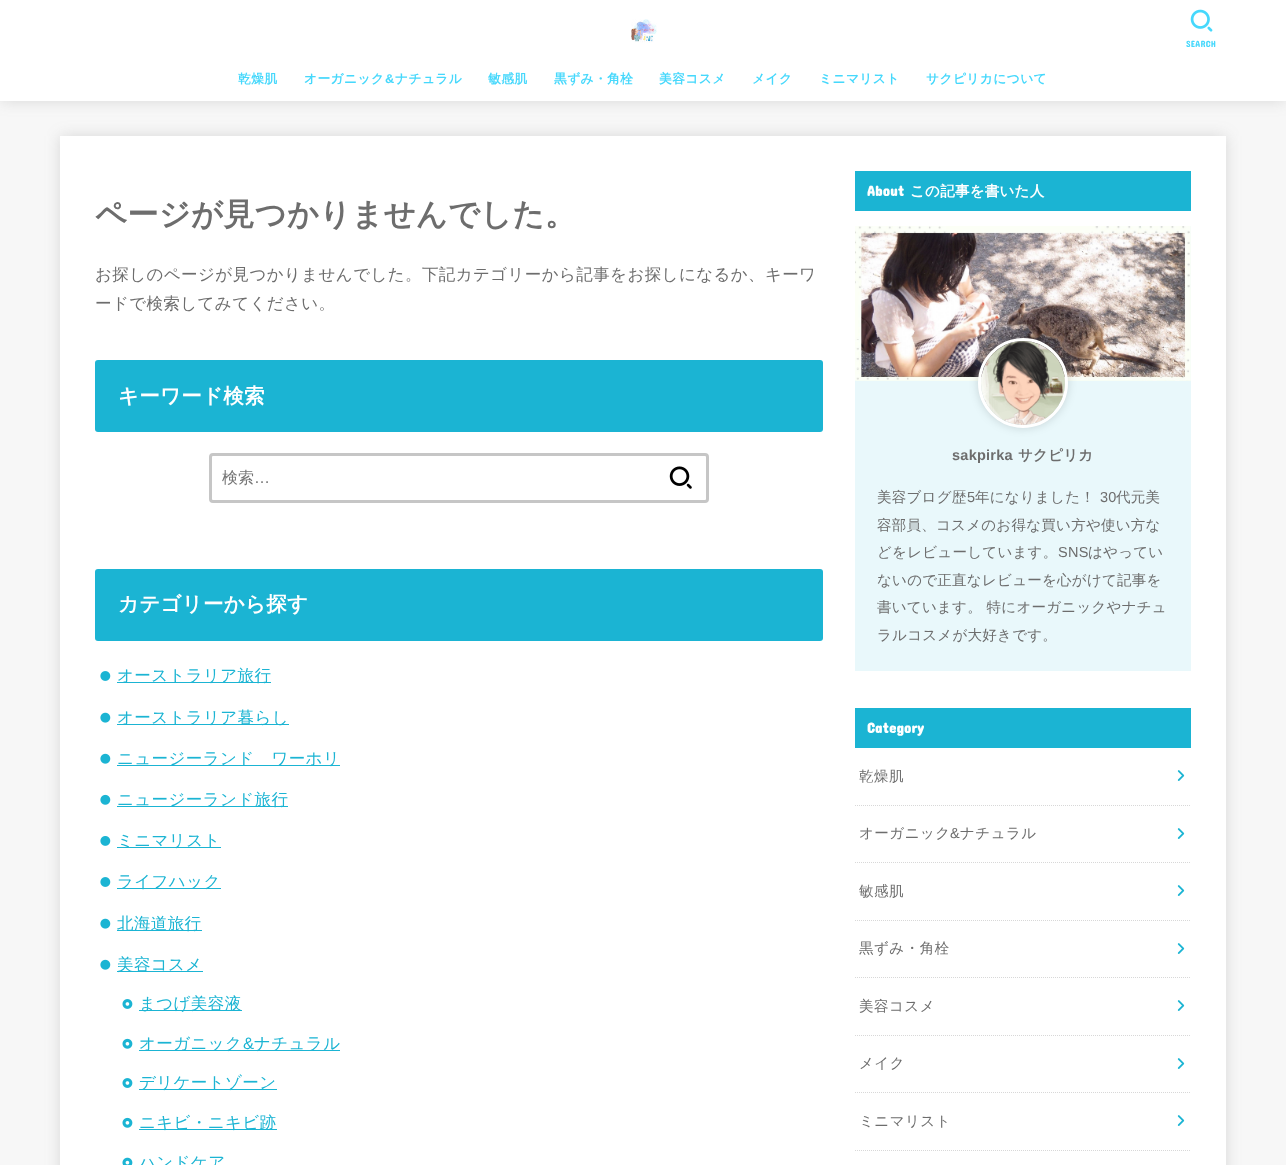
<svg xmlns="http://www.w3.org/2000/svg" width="1286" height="1165">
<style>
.a{font:9px Concert One;letter-spacing:0.25px;fill:#46d8fc}
.b{font:bold 12.75px WenQuanYi Zen Hei;letter-spacing:0.4px;fill:#46d8fc}
.c{font:bold 12.75px Liberation Sans;letter-spacing:0.4px;fill:#46d8fc}
.d{font:bold 31.25px WenQuanYi Zen Hei;letter-spacing:0.25px;fill:#6d6d6d}
.e{font:500 16.5px WenQuanYi Zen Hei;letter-spacing:0.4px;fill:#6d6d6d}
.f{font:bold 20.5px WenQuanYi Zen Hei;letter-spacing:0.25px;fill:#fff}
.g{font:500 16px WenQuanYi Zen Hei;fill:#757575}
.h{font:16px Liberation Sans;fill:#757575}
.i{font:500 16.5px WenQuanYi Zen Hei;letter-spacing:0.4px;fill:#1bb4d3}
.j{font:16.5px Liberation Sans;letter-spacing:0.4px;fill:#1bb4d3}
.k{font:bold 14.5px Concert One;letter-spacing:0.25px;fill:#fff}
.l{font:bold 14.5px WenQuanYi Zen Hei;letter-spacing:0.25px;fill:#fff}
.m{font:bold 14.5px Liberation Sans;letter-spacing:0.25px;fill:#6d6d6d}
.n{font:bold 14.5px WenQuanYi Zen Hei;letter-spacing:0.25px;fill:#6d6d6d}
.o{font:500 14.5px WenQuanYi Zen Hei;letter-spacing:0.25px;fill:#6d6d6d}
.p{font:14.5px Liberation Sans;letter-spacing:0.25px;fill:#6d6d6d}
.q{font:500 14.5px WenQuanYi Zen Hei;letter-spacing:0.5px;fill:#6d6d6d}
.r{font:14.5px Liberation Sans;letter-spacing:0.5px;fill:#6d6d6d}
</style>
<rect width="100%" height="100%" fill="#f7f7f7"/>
<path fill="#66666633" filter="blur(7.5px)" d="M0 -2h1286v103H0z"/>
<path fill="#fff" d="M0 0h1286v101H0z"/>
<image href="1.png" x="631" y="19" width="26" height="24"/>
<image href="2.png" x="1190" y="9" width="23" height="23"/>
<path fill="#66666633" filter="blur(7.5px)" d="M60 136h1166v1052H60z"/>
<path fill="#fff" d="M60 136h1166v1029H60z"/>
<rect fill="#1bb4d3" x="95" y="360" width="728" height="72" rx="3"/>
<rect fill="none" stroke="#c6c6c6" stroke-width="3" x="210.5" y="454.5" width="497" height="47" rx="2.5"/>
<image href="3.png" x="669" y="466" width="23" height="23"/>
<rect fill="#1bb4d3" x="95" y="569" width="728" height="72" rx="3"/>
<image href="4.png" x="100" y="671" width="11" height="10"/>
<path fill="#1bb4d3" d="M117 682h154v1H117z"/>
<image href="5.png" x="100" y="712" width="11" height="11"/>
<path fill="#1bb4d3" d="M117 724h172v1H117z"/>
<image href="6.png" x="100" y="753" width="11" height="11"/>
<path fill="#1bb4d3" d="M117 765h223v1H117z"/>
<image href="7.png" x="100" y="794" width="11" height="11"/>
<path fill="#1bb4d3" d="M117 806h171v1H117z"/>
<image href="8.png" x="100" y="836" width="11" height="10"/>
<path fill="#1bb4d3" d="M117 847h104v1H117z"/>
<image href="9.png" x="100" y="877" width="11" height="10"/>
<path fill="#1bb4d3" d="M117 888h104v1H117z"/>
<image href="10.png" x="100" y="918" width="11" height="11"/>
<path fill="#1bb4d3" d="M117 930h85v1H117z"/>
<image href="11.png" x="100" y="959" width="11" height="11"/>
<path fill="#1bb4d3" d="M117 971h86v1H117z"/>
<image href="12.png" x="122" y="999" width="11" height="10"/>
<path fill="#1bb4d3" d="M139 1010h103v1H139z"/>
<image href="13.png" x="122" y="1038" width="11" height="11"/>
<path fill="#1bb4d3" d="M139 1050h201v1H139z"/>
<image href="14.png" x="122" y="1078" width="11" height="10"/>
<path fill="#1bb4d3" d="M139 1089h138v1H139z"/>
<image href="15.png" x="122" y="1117" width="11" height="11"/>
<path fill="#1bb4d3" d="M139 1129h138v1H139z"/>
<image href="16.png" x="122" y="1157" width="11" height="8"/>
<path fill="#1bb4d3" d="M855 171h336v40H855z"/>
<path fill="#e9f8fb" d="M855 226h336v445H855z"/>
<image href="17.png" x="855" y="226" width="336" height="155"/>
<rect fill="#00000026" filter="blur(5px)" x="978" y="338" width="90" height="90" rx="45"/>
<circle fill="none" stroke="#fff" stroke-width="3" cx="1023" cy="383" r="43.5"/>
<image href="18.png" x="981" y="341" width="84" height="84"/>
<path fill="#1bb4d3" d="M855 708h336v40H855z"/>
<path fill="none" stroke="#d8d8d8" stroke-dasharray="1 1" d="M855 805.5h336"/>
<image href="19.png" x="1177" y="770" width="8" height="11"/>
<path fill="none" stroke="#d8d8d8" stroke-dasharray="1 1" d="M855 862.5h336"/>
<image href="19.png" x="1177" y="828" width="8" height="11"/>
<path fill="none" stroke="#d8d8d8" stroke-dasharray="1 1" d="M855 920.5h336"/>
<image href="19.png" x="1177" y="885" width="8" height="11"/>
<path fill="none" stroke="#d8d8d8" stroke-dasharray="1 1" d="M855 977.5h336"/>
<image href="19.png" x="1177" y="943" width="8" height="11"/>
<path fill="none" stroke="#d8d8d8" stroke-dasharray="1 1" d="M855 1035.5h336"/>
<image href="19.png" x="1177" y="1000" width="8" height="11"/>
<path fill="none" stroke="#d8d8d8" stroke-dasharray="1 1" d="M855 1092.5h336"/>
<image href="19.png" x="1177" y="1058" width="8" height="11"/>
<path fill="none" stroke="#d8d8d8" stroke-dasharray="1 1" d="M855 1150.5h336"/>
<image href="19.png" x="1177" y="1115" width="8" height="11"/>
<text class="a" x="1186" y="47">SEARCH</text>
<text class="b" x="238" y="83">乾燥肌</text>
<text class="b" x="304" y="83">オーガニック</text>
<text class="c" x="385" y="83">&amp;</text>
<text class="b" x="395" y="83">ナチュラル</text>
<text class="b" x="488" y="83">敏感肌</text>
<text class="b" x="554" y="83">黒ずみ・角栓</text>
<text class="b" x="659" y="83">美容コスメ</text>
<text class="b" x="752" y="83">メイク</text>
<text class="b" x="819" y="83">ミニマリスト</text>
<text class="b" x="926" y="83">サクピリカについて</text>
<text class="d" x="95" y="225">ページが見つかりませんでした。</text>
<text class="e" x="95" y="280">お探しのページが見つかりませんでした。下記カテゴリーから記事をお探しになるか、キーワ</text>
<text class="e" x="95" y="309">ードで検索してみてください。</text>
<text class="f" x="118" y="403">キーワード検索</text>
<text class="g" x="222" y="483">検索</text>
<text class="h" x="254" y="483">…</text>
<text class="f" x="118" y="611">カテゴリーから探す</text>
<text class="i" x="117" y="681">オーストラリア旅行</text>
<text class="i" x="117" y="723">オーストラリア暮らし</text>
<text class="i" x="117" y="764">ニュージーランド　ワーホリ</text>
<text class="i" x="117" y="805">ニュージーランド旅行</text>
<text class="i" x="117" y="846">ミニマリスト</text>
<text class="i" x="117" y="887">ライフハック</text>
<text class="i" x="117" y="929">北海道旅行</text>
<text class="i" x="117" y="970">美容コスメ</text>
<text class="i" x="139" y="1009">まつげ美容液</text>
<text class="i" x="139" y="1049">オーガニック</text>
<text class="j" x="243" y="1049">&amp;</text>
<text class="i" x="254" y="1049">ナチュラル</text>
<text class="i" x="139" y="1088">デリケートゾーン</text>
<text class="i" x="139" y="1128">ニキビ・ニキビ跡</text>
<text class="i" x="139" y="1168">ハンドケア</text>
<text class="k" x="867" y="196">About</text>
<text class="l" x="910" y="196">この記事を書いた人</text>
<text class="m" x="952" y="460">sakpirka</text>
<text class="n" x="1018" y="460">サクピリカ</text>
<text class="o" x="877" y="502">美容ブログ歴</text>
<text class="p" x="967" y="502">5</text>
<text class="o" x="975" y="502">年になりました！</text>
<text class="p" x="1100" y="502">30</text>
<text class="o" x="1116" y="502">代元美</text>
<text class="o" x="877" y="530">容部員、コスメのお得な買い方や使い方な</text>
<text class="o" x="877" y="557">どをレビューしています。</text>
<text class="p" x="1058" y="557">SNS</text>
<text class="o" x="1088" y="557">はやってい</text>
<text class="o" x="877" y="585">ないので正直なレビューを心がけて記事を</text>
<text class="o" x="877" y="612">書いています。 特にオーガニックやナチュ</text>
<text class="o" x="877" y="640">ラルコスメが大好きです。</text>
<text class="k" x="867" y="733">Category</text>
<text class="q" x="859" y="781">乾燥肌</text>
<text class="q" x="859" y="838">オーガニック</text>
<text class="r" x="950" y="838">&amp;</text>
<text class="q" x="960" y="838">ナチュラル</text>
<text class="q" x="859" y="896">敏感肌</text>
<text class="q" x="859" y="953">黒ずみ・角栓</text>
<text class="q" x="859" y="1011">美容コスメ</text>
<text class="q" x="859" y="1068">メイク</text>
<text class="q" x="859" y="1126">ミニマリスト</text>
</svg>
